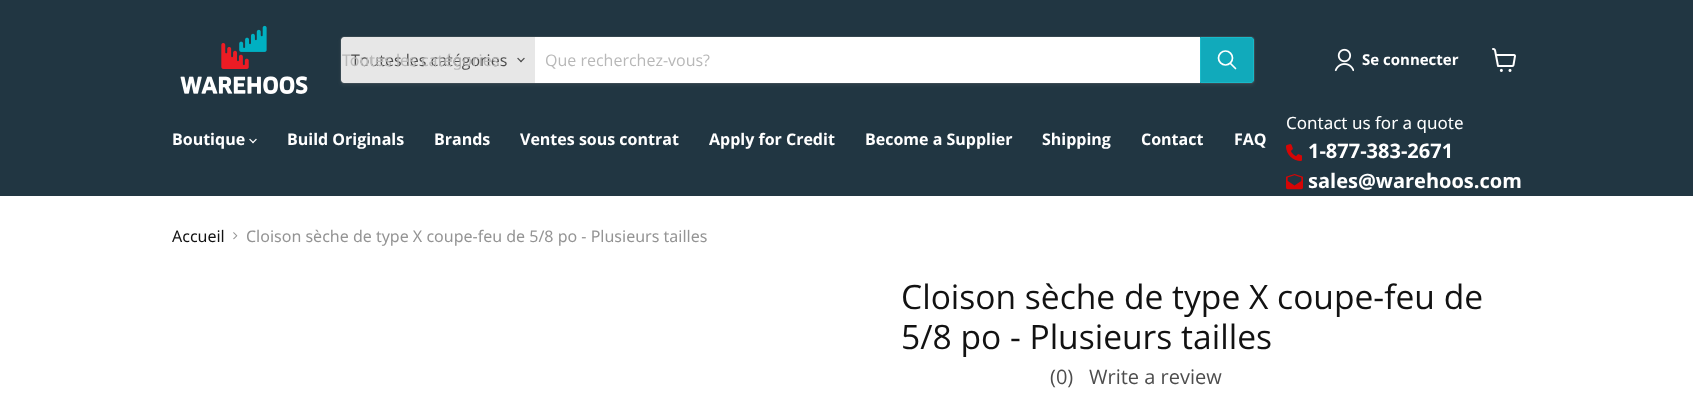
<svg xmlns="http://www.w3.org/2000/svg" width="1693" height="406">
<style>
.a{font:16px Open Sans;fill:#4d4d4d}
.b{font:16px Noto Sans;fill:#b8b8b8}
.c{font:16px Open Sans;fill:#b8b8b8}
.d{font:bold 15px Open Sans;fill:#fff}
.e{font:bold 16px Open Sans;fill:#fff}
.f{font:17px Noto Sans;fill:#fff}
.g{font:bold 20px Open Sans;fill:#fff}
.h{font:16px Noto Sans;fill:#121212}
.i{font:16px Noto Sans;fill:#949494}
.j{font:33.6px Open Sans;fill:#121212}
.k{font:20px Open Sans;fill:#4d4d4d}
</style>
<rect width="100%" height="100%" fill="#fff"/>
<path fill="#213642" d="M0 0h1693v196H0z"/>
<image href="1.png" x="180" y="25" width="128" height="69"/>
<rect fill="#8080801c" filter="blur(1.5px)" x="340" y="38" width="915" height="48" rx="4"/>
<rect fill="none" stroke="#80808033" x="340.5" y="36.5" width="914" height="47" rx="3.5"/>
<path fill="#e7e7e7" d="M344 37h191v46h-191c-1.5 0-3-1.5-3-3v-40c0-1.5 1.5-3 3-3z"/>
<image href="2.png" x="517" y="57" width="8" height="6"/>
<path fill="#fff" d="M535 37h665v46H535z"/>
<path fill="#1ab" stroke="#1ab9c8" d="M1200.5 37.5h50.5c1.5 0 2.5 1 2.5 2.5v40c0 1.5-1 2.5-2.5 2.5h-50.5z"/>
<path fill="none" stroke="#fff" stroke-width="1.7" stroke-linecap="round" d="M1235.5 68.5l-5-5"/>
<circle fill="none" stroke="#fff" stroke-width="1.7" cx="1225.5" cy="58" r="7"/>
<image href="3.png" x="1334" y="48" width="20" height="24"/>
<image href="4.png" x="1492" y="48" width="24" height="24"/>
<image href="5.png" x="249" y="138" width="8" height="6"/>
<image href="6.png" x="1286" y="144" width="16" height="17"/>
<image href="7.png" x="1286" y="174" width="17" height="16"/>
<image href="8.png" x="233" y="232" width="5" height="8"/>
<text class="a" x="351" y="66">Toutes les catégories</text>
<text class="b" x="342" y="66">Toutes les catégories</text>
<text class="c" x="545" y="66">Que recherchez-vous?</text>
<text class="d" x="1362" y="65">Se connecter</text>
<text class="e" x="172" y="145">Boutique</text>
<text class="e" x="287" y="145">Build Originals</text>
<text class="e" x="434" y="145">Brands</text>
<text class="e" x="520" y="145">Ventes sous contrat</text>
<text class="e" x="709" y="145">Apply for Credit</text>
<text class="e" x="865" y="145">Become a Supplier</text>
<text class="e" x="1042" y="145">Shipping</text>
<text class="e" x="1141" y="145">Contact</text>
<text class="e" x="1234" y="145">FAQ</text>
<text class="f" x="1286" y="129">Contact us for a quote</text>
<text class="g" x="1308" y="158">1-877-383-2671</text>
<text class="g" x="1308" y="188">sales@warehoos.com</text>
<text class="h" x="172" y="242">Accueil</text>
<text class="i" x="246" y="242">Cloison sèche de type X coupe-feu de 5/8 po - Plusieurs tailles</text>
<text class="j" x="901" y="309">Cloison sèche de type X coupe-feu de</text>
<text class="j" x="901" y="349">5/8 po - Plusieurs tailles</text>
<text class="k" x="1050" y="384">(0)</text>
<text class="k" x="1089" y="384">Write a review</text>
</svg>
